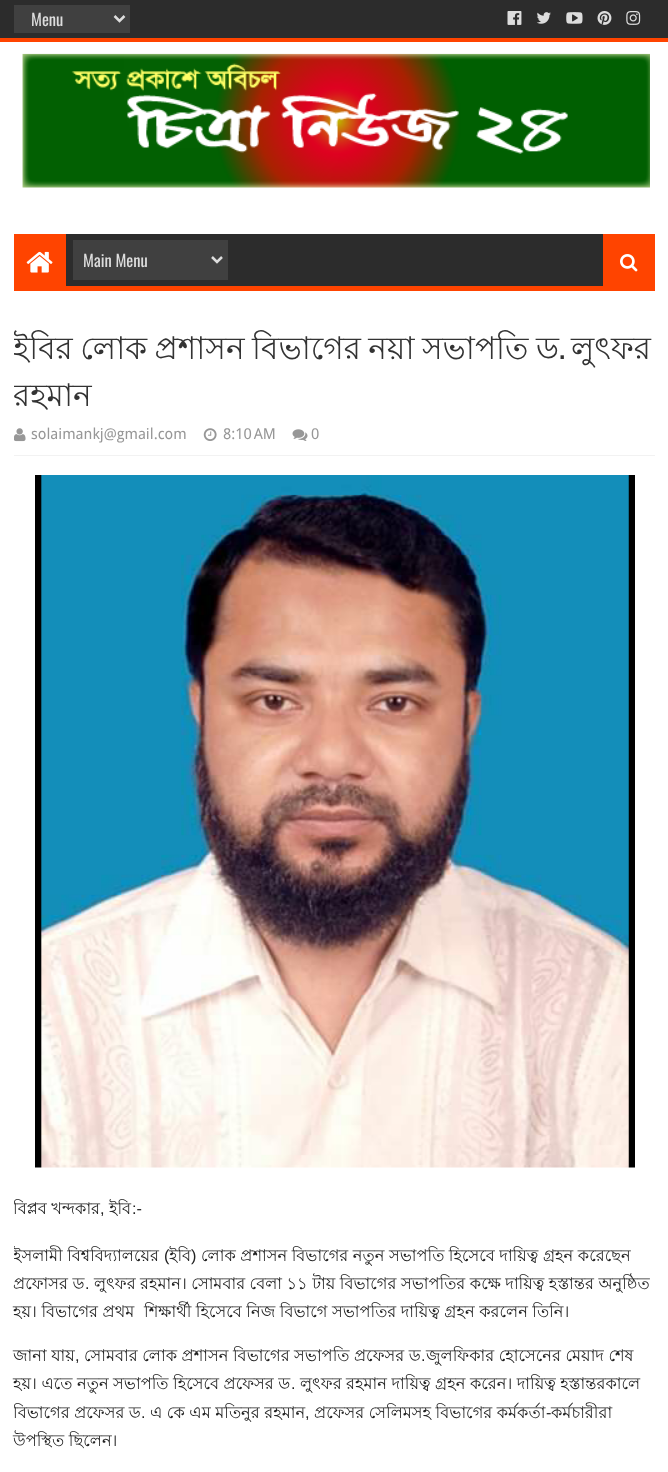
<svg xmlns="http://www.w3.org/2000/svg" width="668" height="1472">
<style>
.a{font:16.5px Oswald;fill:#ddd}
.b{font:31.25px Lohit Bengali;fill:#333}
.c{font:31.25px Oswald;fill:#333}
.d{font:15px Droid Sans;fill:#979797}
.e{font:16.25px Lohit Bengali;fill:#222}
.f{font:16.25px Liberation Sans;fill:#222}
</style>
<defs>
<clipPath id="clip1"><path d="M14 323h641v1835H14z"/></clipPath>
<clipPath id="clip2"><path d="M14 475h641v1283H14z"/></clipPath>
</defs>
<rect width="100%" height="100%" fill="#fff"/>
<path fill="#2c2c2c" d="M0 0h668v38H0z"/>
<path fill="#f40" d="M0 38h668v4H0z"/>
<path fill="#404040" d="M14 5h116v28H14z"/>
<path fill="none" stroke="#ddd" stroke-width="2.5" d="M114.5 16l5 5l5-5"/>
<image href="1.png" x="507" y="11" width="15" height="14"/>
<image href="2.png" x="536" y="12" width="15" height="12"/>
<image href="3.png" x="566" y="12" width="17" height="12"/>
<image href="4.png" x="597" y="11" width="15" height="14"/>
<image href="5.png" x="626" y="11" width="15" height="14"/>
<image href="6.png" x="22" y="53" width="628" height="135"/>
<path fill="#2c2c2c" d="M66 234h537v52H66z"/>
<path fill="#f40" d="M14 286h641v5H14z"/>
<path fill="#f40" d="M14 234h52v52H14z"/>
<image href="7.png" x="26" y="251" width="27" height="22"/>
<path fill="#404040" d="M73 240h155v40H73z"/>
<path fill="none" stroke="#ddd" stroke-width="2.5" d="M212 257l5 5l5-5"/>
<path fill="#f40" d="M603 234h52v52H603z"/>
<image href="8.png" x="620" y="254" width="18" height="18"/>
<path fill="#f2f2f2" d="M14 455h641v1H14z"/>
<image href="9.png" x="14" y="428" width="12" height="14"/>
<image href="10.png" x="203" y="428" width="14" height="13"/>
<image href="11.png" x="292" y="429" width="16" height="12"/>
<image href="12.png" x="35" y="475" width="600" height="693"/>
<text class="a" x="31" y="26">Menu</text>
<text class="a" x="83" y="267">Main Menu</text>
<g clip-path="url(#clip1)">
<text class="b" x="13" y="359" word-spacing="-1.25">ইবির লোক প্রশাসন বিভাগের নয়া সভাপতি ড</text>
</g>
<text class="c" x="559" y="359">.</text>
<text class="b" x="571" y="359">লুৎফর</text>
<g clip-path="url(#clip1)">
<text class="b" x="13" y="406">রহমান</text>
</g>
<text class="d" x="31" y="439">solaimankj@gmail.com</text>
<text class="d" x="223" y="439">8:10 AM</text>
<text class="d" x="311" y="439">0</text>
<g clip-path="url(#clip2)">
<text class="e" x="13" y="1214">বিপ্লব খন্দকার</text>
</g>
<text class="e" x="109" y="1214">ইবি</text>
<text class="f" x="132" y="1214">:-</text>
<text class="f" x="100" y="1214">,</text>
<g clip-path="url(#clip2)">
<text class="e" x="13" y="1261">ইসলামী বিশ্ববিদ্যালয়ের</text>
</g>
<text class="f" x="164" y="1261">(</text>
<text class="e" x="169" y="1261">ইবি</text>
<text class="f" x="191" y="1261">)</text>
<text class="e" x="201" y="1261">লোক প্রশাসন বিভাগের নতুন সভাপতি হিসেবে দায়িত্ব গ্রহন করেছেন</text>
<text class="e" x="13" y="1289">প্রফোসর ড</text>
<text class="f" x="85" y="1289">.</text>
<text class="e" x="94" y="1289">লুৎফর রহমান। সোমবার বেলা ১১ টায় বিভাগের সভাপতির কক্ষে দায়িত্ব হস্তান্তর অনুষ্ঠিত</text>
<text class="e" x="13" y="1317">হয়। বিভাগের প্রথম</text>
<text class="e" x="144" y="1317">শিক্ষার্থী হিসেবে নিজ বিভাগে সভাপতির দায়িত্ব গ্রহন করলেন তিনি।</text>
<text class="e" x="13" y="1361">জানা যায়</text>
<text class="f" x="75" y="1361">,</text>
<text class="e" x="84" y="1361">সোমবার লোক প্রশাসন বিভাগের সভাপতি প্রফেসর ড</text>
<text class="f" x="421" y="1361">.</text>
<text class="e" x="426" y="1361">জুলফিকার হোসেনের মেয়াদ শেষ</text>
<text class="e" x="13" y="1389">হয়। এতে নতুন সভাপতি হিসেবে প্রফেসর ড</text>
<text class="f" x="291" y="1389">.</text>
<text class="e" x="300" y="1389">লুৎফর রহমান দায়িত্ব গ্রহন করেন। দায়িত্ব হস্তান্তরকালে</text>
<g clip-path="url(#clip2)">
<text class="e" x="13" y="1418">বিভাগের প্রফেসর ড</text>
</g>
<text class="e" x="150" y="1418">এ কে এম মতিনুর রহমান</text>
<text class="e" x="314" y="1418">প্রফেসর সেলিমসহ বিভাগের কর্মকর্তা</text>
<text class="f" x="546" y="1418">-</text>
<text class="e" x="551" y="1418">কর্মচারীরা</text>
<text class="f" x="141" y="1418">.</text>
<text class="f" x="305" y="1418">,</text>
<text class="e" x="13" y="1446">উপস্থিত ছিলেন।</text>
</svg>
